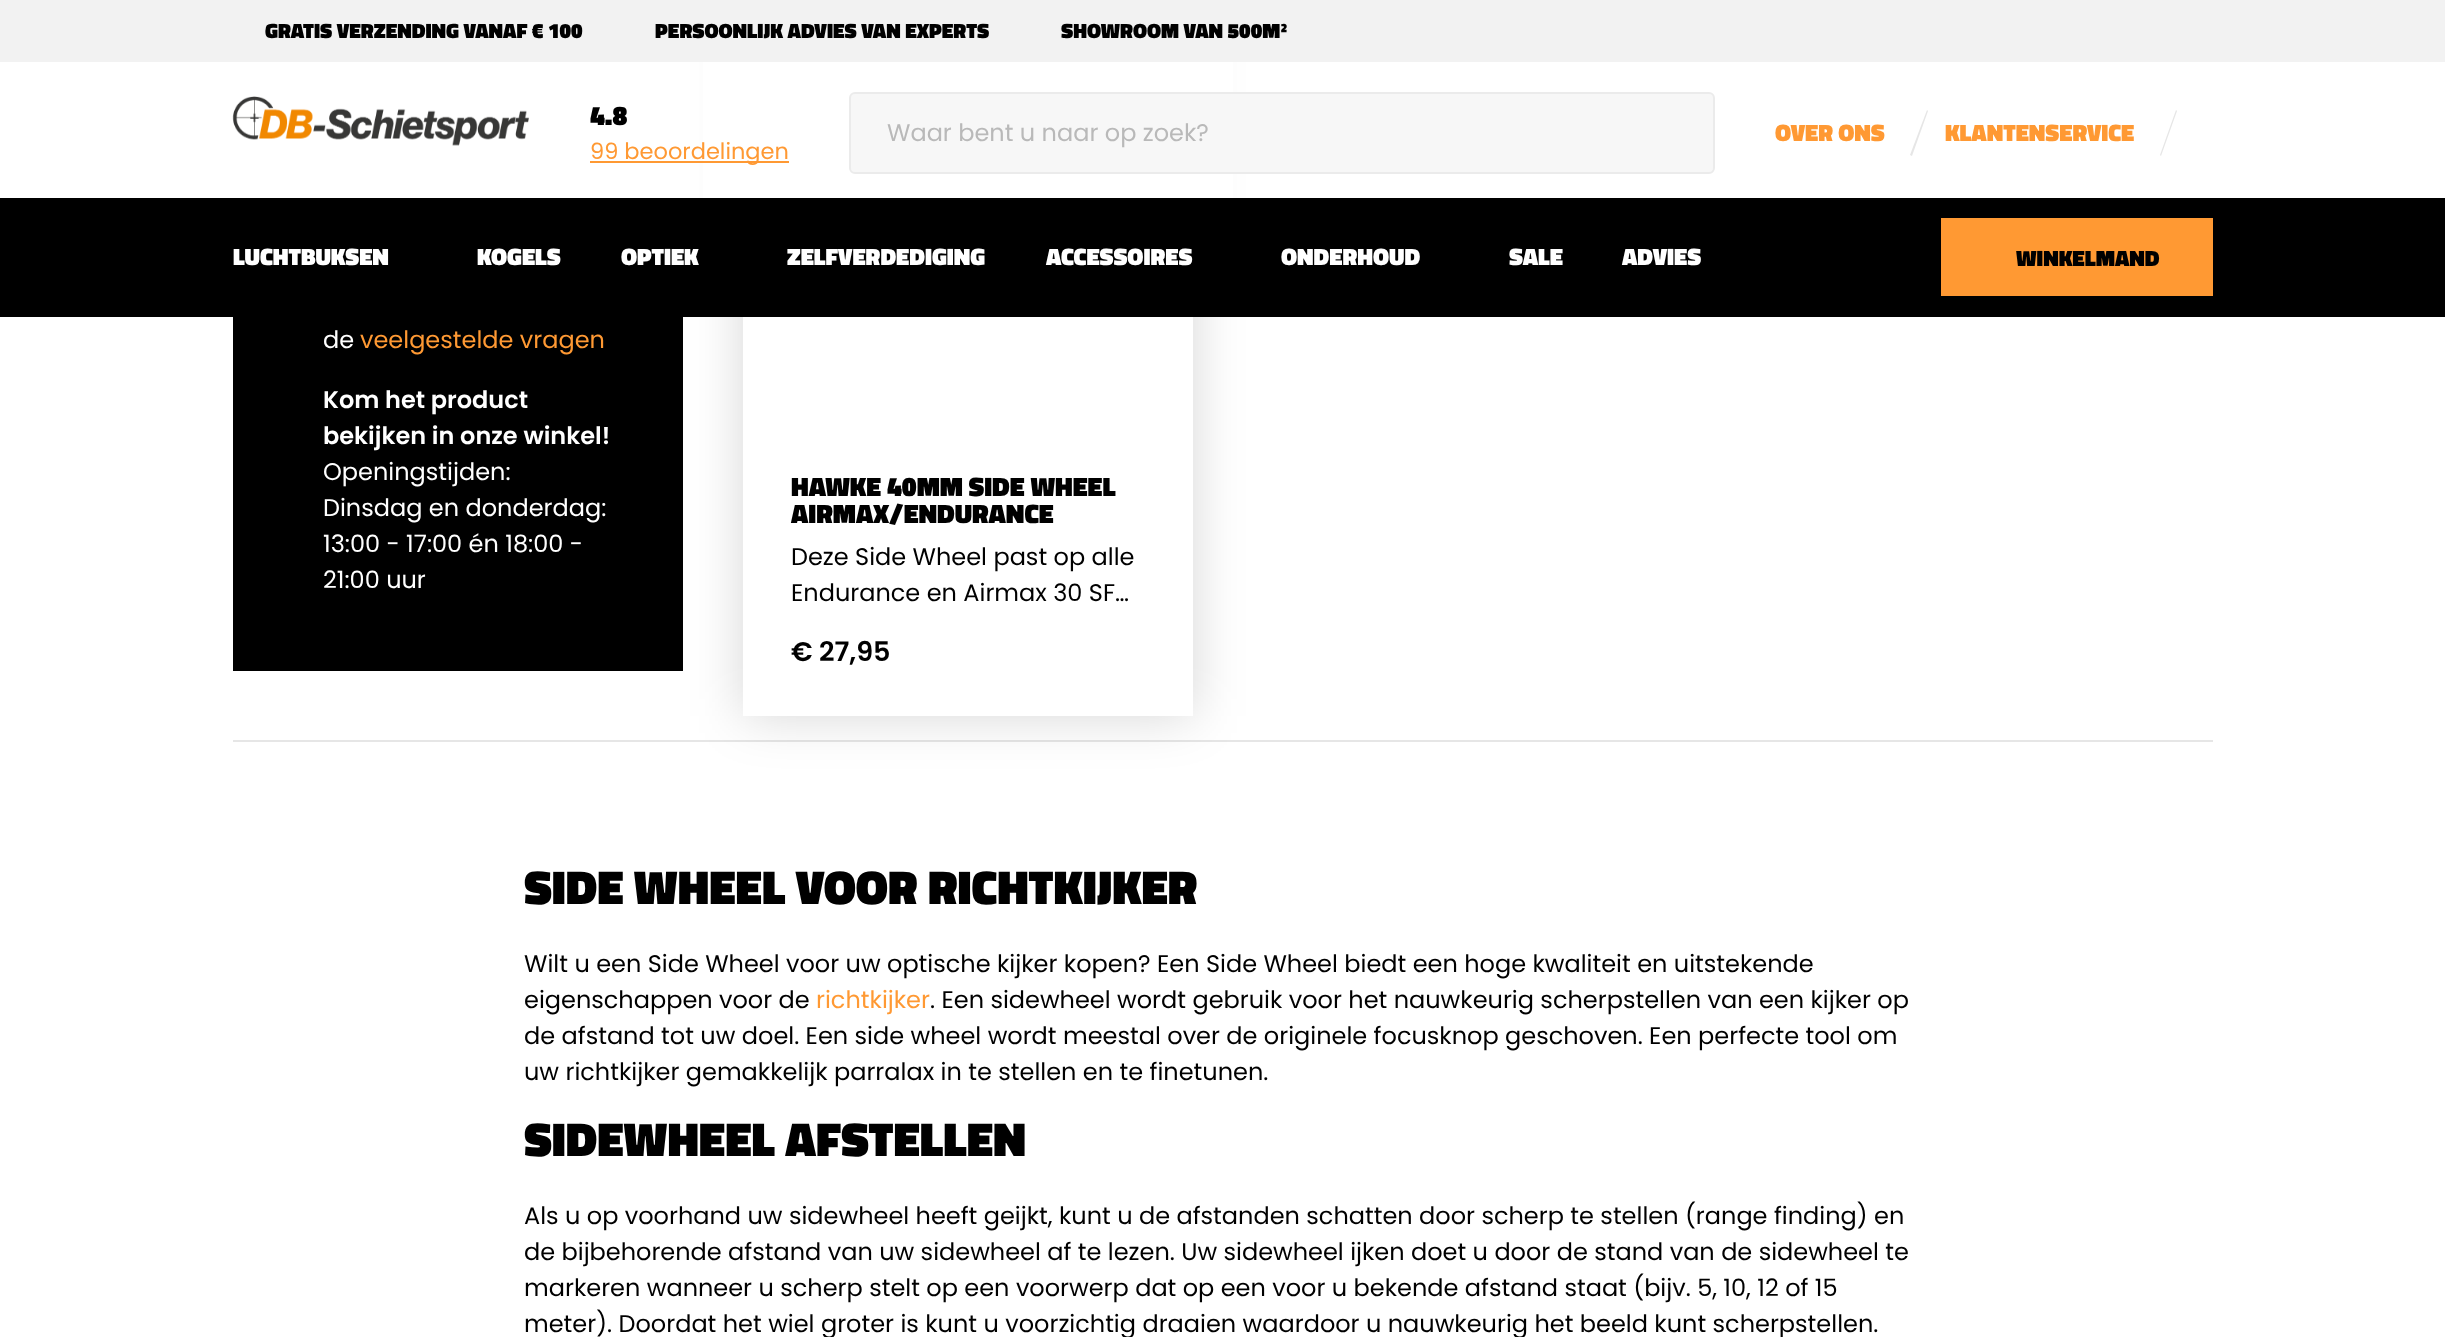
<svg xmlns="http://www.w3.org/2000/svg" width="2445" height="1337">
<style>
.a{font:900 21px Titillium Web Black;fill:#000}
.b{font:900 27px Titillium Web Black;fill:#000}
.c{font:22.5px Poppins;fill:#f93}
.d{font:24px Poppins;fill:#b9b9b9}
.e{font:900 24px Titillium Web Black;fill:#f93}
.f{font:900 24px Titillium Web Black;fill:#fff}
.g{font:900 22.5px Titillium Web Black;fill:#000}
.h{font:24px Poppins;fill:#fff}
.i{font:24px Poppins;fill:#f93}
.j{font:600 24px Poppins;fill:#fff}
.k{font:24px Poppins;fill:#000}
.l{font:600 27px Poppins;fill:#000}
.m{font:900 48px Titillium Web Black;fill:#000}
</style>
<rect width="100%" height="100%" fill="#fff"/>
<path fill="#000" d="M233 317h450v354H233z"/>
<path fill="#e6e6e6" d="M233 740h1980v2H233z"/>
<path fill="#00000029" filter="blur(26px)" d="M743 -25h450v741H743z"/>
<path fill="#fff" d="M703 62h530v136H703z"/>
<path fill="#f2f2f2" d="M0 0h2445v62H0z"/>
<image href="1.png" x="232" y="96" width="297" height="50"/>
<path fill="#f93" d="M590 161h199v2H590z"/>
<rect fill="#f7f7f7" stroke="#ebebeb" stroke-width="2" x="850" y="93" width="864" height="80" rx="5"/>
<path fill="#e6e6e6" d="M1927 110l1 1l-16 45l-2-1z"/>
<path fill="#e6e6e6" d="M2176 110l1 1l-16 45l-1-1z"/>
<path fill="#000" d="M0 198h2445v119H0z"/>
<path fill="#f93" d="M1941 218h272v78H1941z"/>
<path fill="#fff" d="M743 317h450v399H743z"/>
<text class="a" x="265" y="38">GRATIS VERZENDING VANAF € 100</text>
<text class="a" x="655" y="38">PERSOONLIJK ADVIES VAN EXPERTS</text>
<text class="a" x="1061" y="38">SHOWROOM VAN 500M²</text>
<text class="b" x="590" y="125">4.8</text>
<text class="c" x="590" y="159">99 beoordelingen</text>
<text class="d" x="887" y="141">Waar bent u naar op zoek?</text>
<text class="e" x="1775" y="141">OVER ONS</text>
<text class="e" x="1945" y="141">KLANTENSERVICE</text>
<text class="f" x="233" y="265">LUCHTBUKSEN</text>
<text class="f" x="477" y="265">KOGELS</text>
<text class="f" x="621" y="265">OPTIEK</text>
<text class="f" x="787" y="265">ZELFVERDEDIGING</text>
<text class="f" x="1046" y="265">ACCESSOIRES</text>
<text class="f" x="1281" y="265">ONDERHOUD</text>
<text class="f" x="1509" y="265">SALE</text>
<text class="f" x="1622" y="265">ADVIES</text>
<text class="g" x="2016" y="266">WINKELMAND</text>
<text class="h" x="323" y="348">de</text>
<text class="i" x="360" y="348">veelgestelde vragen</text>
<text class="j" x="323" y="408">Kom het product</text>
<text class="j" x="323" y="444">bekijken in onze winkel!</text>
<text class="h" x="323" y="480">Openingstijden:</text>
<text class="h" x="323" y="516">Dinsdag en donderdag:</text>
<text class="h" x="323" y="552">13:00 - 17:00 én 18:00 -</text>
<text class="h" x="323" y="588">21:00 uur</text>
<text class="b" x="791" y="496">HAWKE 40MM SIDE WHEEL</text>
<text class="b" x="791" y="523">AIRMAX/ENDURANCE</text>
<text class="k" x="791" y="565">Deze Side Wheel past op alle</text>
<text class="k" x="791" y="601">Endurance en Airmax 30 SF…</text>
<text class="l" x="791" y="661">€ 27,95</text>
<text class="m" x="524" y="904">SIDE WHEEL VOOR RICHTKIJKER</text>
<text class="k" x="524" y="972">Wilt u een Side Wheel voor uw optische kijker kopen? Een Side Wheel biedt een hoge kwaliteit en uitstekende</text>
<text class="k" x="524" y="1008">eigenschappen voor de</text>
<text class="i" x="816" y="1008">richtkijker</text>
<text class="k" x="930" y="1008">. Een sidewheel wordt gebruik voor het nauwkeurig scherpstellen van een kijker op</text>
<text class="k" x="524" y="1044">de afstand tot uw doel. Een side wheel wordt meestal over de originele focusknop geschoven. Een perfecte tool om</text>
<text class="k" x="524" y="1080">uw richtkijker gemakkelijk parralax in te stellen en te finetunen.</text>
<text class="m" x="524" y="1156">SIDEWHEEL AFSTELLEN</text>
<text class="k" x="524" y="1224">Als u op voorhand uw sidewheel heeft geijkt, kunt u de afstanden schatten door scherp te stellen (range finding) en</text>
<text class="k" x="524" y="1260">de bijbehorende afstand van uw sidewheel af te lezen. Uw sidewheel ijken doet u door de stand van de sidewheel te</text>
<text class="k" x="524" y="1296">markeren wanneer u scherp stelt op een voorwerp dat op een voor u bekende afstand staat (bijv. 5, 10, 12 of 15</text>
<text class="k" x="524" y="1332">meter). Doordat het wiel groter is kunt u voorzichtig draaien waardoor u nauwkeurig het beeld kunt scherpstellen.</text>
</svg>
